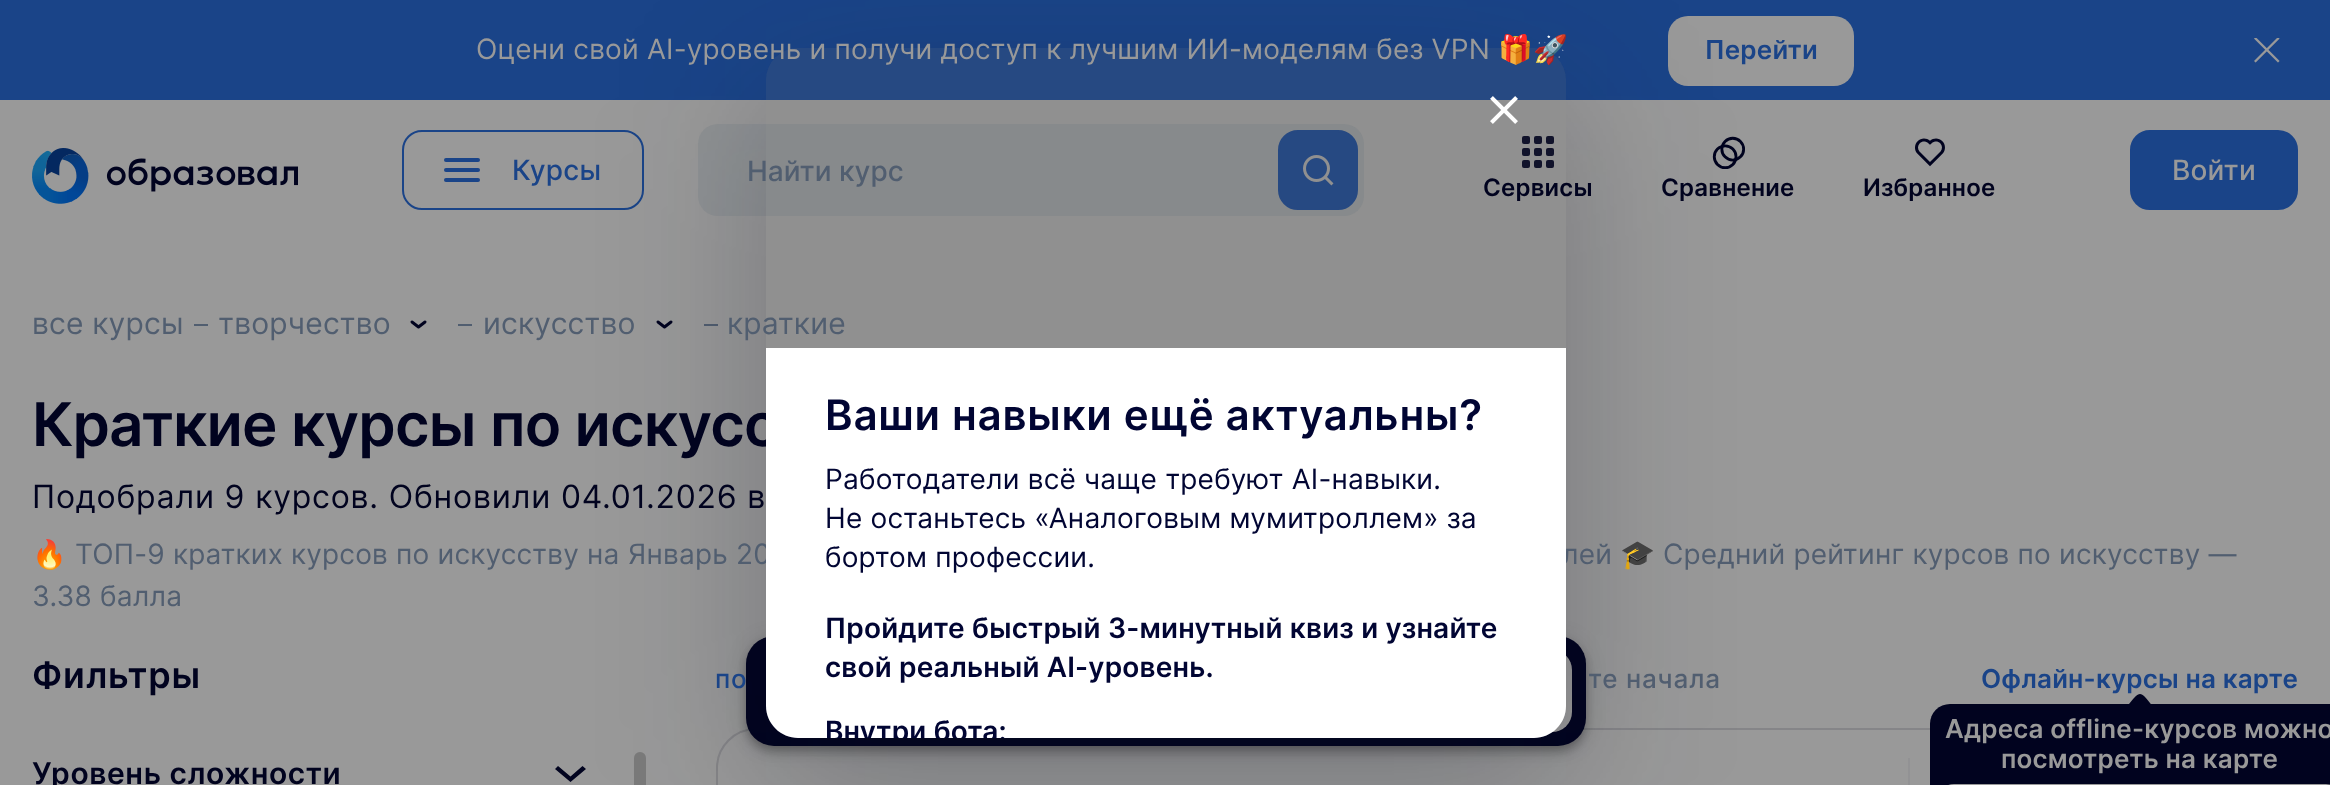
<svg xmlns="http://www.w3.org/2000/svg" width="2330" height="785">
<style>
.a{font:28px Inter;letter-spacing:0.2px;fill:#999}
.b{font:28px Noto Color Emoji;letter-spacing:0.2px;fill:#999}
.c{font:600 26px Inter;letter-spacing:0.2px;fill:#1a4488}
.d{font:500 28px Inter;letter-spacing:0.2px;fill:#1a4488}
.e{font:500 28px Inter;fill:#515e70}
.f{font:500 28px Inter;letter-spacing:0.2px;fill:#999}
.g{font:600 24px Inter;letter-spacing:0.2px;fill:#01031f}
.h{font:30px Inter;letter-spacing:0.2px;fill:#515e70}
.i{font:600 60px Inter;letter-spacing:-0.8px;fill:#01031f}
.j{font:32px Inter;letter-spacing:0.8px;fill:#01031f}
.k{font:28px Noto Color Emoji;letter-spacing:0.2px;fill:#515e70}
.l{font:28px Inter;letter-spacing:0.2px;fill:#515e70}
.m{font:600 36px Inter;letter-spacing:0.8px;fill:#01031f}
.n{font:600 30px Inter;letter-spacing:0.6px;fill:#01031f}
.o{font:500 26px Inter;letter-spacing:0.8px;fill:#1a4488}
.p{font:500 26px Inter;letter-spacing:0.8px;fill:#515e70}
.q{font:600 26px Inter;letter-spacing:0.2px;fill:#999}
.r{font:600 42px Inter;letter-spacing:0.8px;fill:#010533}
.s{font:28px Inter;letter-spacing:0.2px;fill:#010533}
.t{font:600 28px Inter;letter-spacing:0.2px;fill:#010533}
</style>
<defs>
<clipPath id="clip1"><path d="M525 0h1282v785h-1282zm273 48h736c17.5 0 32 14.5 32 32v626c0 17.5-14.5 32-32 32h-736c-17.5 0-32-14.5-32-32v-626c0-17.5 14.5-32 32-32z" clip-rule="evenodd"/></clipPath>
<clipPath id="clip2"><rect x="766" y="48" width="800" height="690" rx="32"/></clipPath>
</defs>
<rect width="100%" height="100%" fill="#999"/>
<path fill="#1a4488" d="M0 0h2330v100H0z"/>
<rect fill="#999" x="1668" y="16" width="186" height="70" rx="20"/>
<image href="1.png" x="2254" y="38" width="26" height="25"/>
<image href="2.png" x="32" y="148" width="266" height="56"/>
<rect fill="none" stroke="#1a4488" stroke-width="2" x="403" y="131" width="240" height="78" rx="19"/>
<rect fill="#1a4488" x="444" y="178" width="36" height="4" rx="2"/>
<rect fill="#1a4488" x="444" y="158" width="36" height="4" rx="2"/>
<rect fill="#1a4488" x="444" y="168" width="36" height="4" rx="2"/>
<rect fill="#8f9294" x="698" y="124" width="666" height="92" rx="20"/>
<rect fill="#1a4488" stroke="#1a4488" stroke-width="2" x="1279" y="131" width="78" height="78" rx="19"/>
<image href="3.png" x="1303" y="155" width="31" height="31"/>
<rect fill="#1a4488" stroke="#1a4488" stroke-width="2" x="2131" y="131" width="166" height="78" rx="19"/>
<image href="4.png" x="1522" y="136" width="32" height="32"/>
<image href="5.png" x="1712" y="136" width="33" height="33"/>
<image href="6.png" x="1915" y="138" width="30" height="29"/>
<path fill="#515e70" d="M194 324h14v2H194z"/>
<path fill="none" stroke="#01031f" stroke-width="3" stroke-linecap="round" stroke-linejoin="round" d="M412 322l6.5 5l6.5-5"/>
<path fill="#515e70" d="M458 324h14v2H458z"/>
<path fill="none" stroke="#01031f" stroke-width="3" stroke-linecap="round" stroke-linejoin="round" d="M658 322l6.5 5l6.5-5"/>
<path fill="#515e70" d="M704 324h14v2H704z"/>
<path fill="#01031f" fill-rule="evenodd" d="M558 766l-3 3l15.5 13l15.5-13l-3.5-3l-12 10.5z"/>
<rect fill="#7a7a7a" x="634" y="752" width="12" height="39" rx="6"/>
<rect fill="none" stroke="#858588" stroke-width="2" x="717" y="729" width="1580" height="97" rx="39"/>
<rect fill="#01031f" x="1930" y="704" width="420" height="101" rx="20"/>
<image href="7.png" x="2129" y="694" width="22" height="10"/>
<rect fill="#999" x="1944" y="784" width="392" height="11" rx="10"/>
<path fill="#929294" d="M1908 758h2v27H1908z"/>
<rect fill="#0000001f" filter="blur(10px)" x="746" y="638" width="840" height="110" rx="28"/>
<rect fill="#00000024" filter="blur(5px)" x="746" y="644" width="840" height="110" rx="28"/>
<rect fill="#00000033" filter="blur(4px)" x="748" y="642" width="836" height="106" rx="26"/>
<rect fill="#01031f" x="746" y="636" width="840" height="110" rx="28"/>
<rect fill="#999" x="1374" y="650" width="198" height="82" rx="20"/>
<g clip-path="url(#clip1)">
<rect fill="#0e132340" filter="blur(80px)" x="766" y="96" width="800" height="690" rx="32"/>
</g>
<rect fill="#ffffff14" x="766" y="48" width="800" height="690" rx="32"/>
<path fill="#0000001a" d="M798 48h736c17.5 0 32 14.5 32 32v268h-800v-268c0-17.5 14.5-32 32-32z"/>
<image href="8.png" x="1490" y="96" width="28" height="28"/>
<text class="a" x="476" y="59">Оцени свой AI-уровень и получи доступ к лучшим ИИ-моделям без VPN</text>
<text class="b" x="1498" y="59">🎁🚀</text>
<text class="c" x="1705" y="59">Перейти</text>
<text class="d" x="512" y="180">Курсы</text>
<text class="e" x="747" y="181">Найти курс</text>
<text class="f" x="2172" y="180">Войти</text>
<text class="g" x="1483" y="196">Сервисы</text>
<text class="g" x="1661" y="196">Сравнение</text>
<text class="g" x="1863" y="196">Избранное</text>
<text class="h" x="32" y="334">все курсы</text>
<text class="h" x="218" y="334">творчество</text>
<text class="h" x="483" y="334">искусство</text>
<text class="h" x="727" y="334">краткие</text>
<text class="i" x="32" y="446">Краткие курсы по искусс</text>
<text class="j" x="32" y="508">Подобрали 9 курсов. Обновили 04.01.2026 в</text>
<text class="k" x="32" y="564">🔥</text>
<text class="l" x="75" y="564">ТОП-9 кратких курсов по искусству на Январь 20</text>
<text class="l" x="1562" y="564">лей</text>
<text class="k" x="1620" y="564">🎓</text>
<text class="l" x="1663" y="564">Средний рейтинг курсов по искусству —</text>
<text class="l" x="32" y="606">3.38 балла</text>
<text class="m" x="32" y="688">Фильтры</text>
<text class="n" x="32" y="784">Уровень сложности</text>
<text class="o" x="715" y="688">по</text>
<text class="p" x="1588" y="688">те начала</text>
<text class="c" x="1981" y="688">Офлайн-курсы на карте</text>
<text class="q" x="1945" y="738">Адреса offline-курсов можно</text>
<text class="q" x="2001" y="768">посмотреть на карте</text>
<path fill="#fff" d="M766 348h800v358c0 17.5-14.5 32-32 32h-736c-17.5 0-32-14.5-32-32z"/>
<text class="r" x="825" y="430">Ваши навыки ещё актуальны?</text>
<text class="s" x="825" y="489">Работодатели всё чаще требуют AI-навыки.</text>
<text class="s" x="825" y="528">Не останьтесь «Аналоговым мумитроллем» за</text>
<text class="s" x="825" y="567">бортом профессии.</text>
<text class="t" x="825" y="638">Пройдите быстрый 3-минутный квиз и узнайте</text>
<text class="t" x="825" y="677">свой реальный AI-уровень.</text>
<g clip-path="url(#clip2)">
<text class="t" x="825" y="741">Внутри бота:</text>
</g>
</svg>
